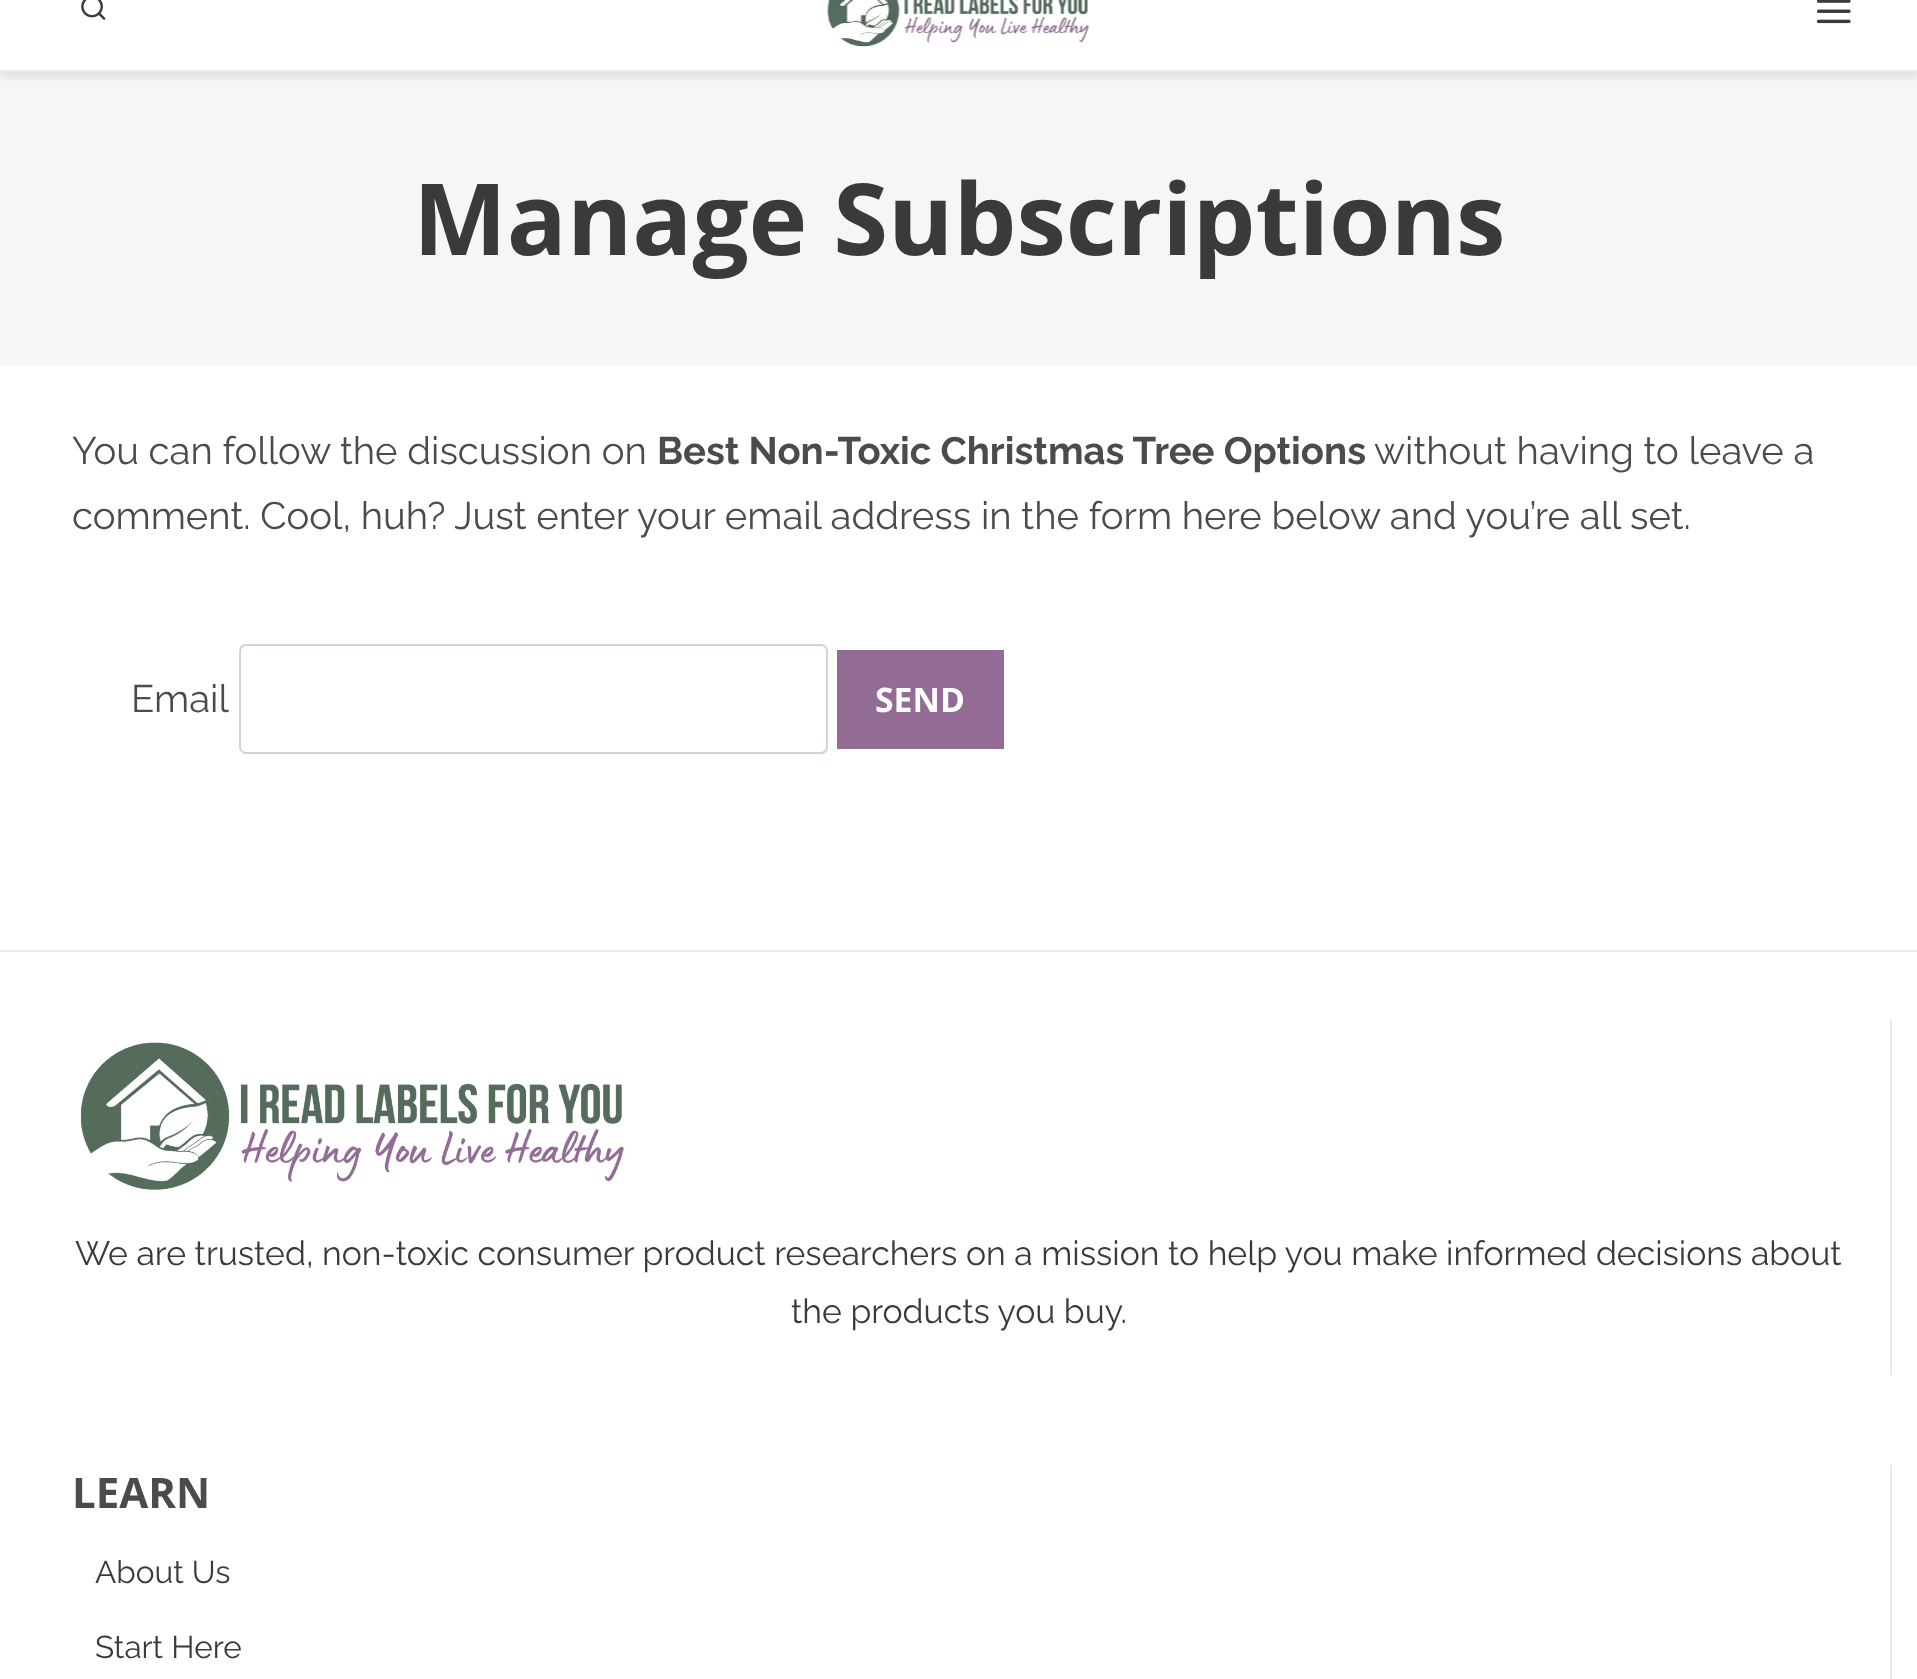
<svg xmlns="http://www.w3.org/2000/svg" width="1917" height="1679">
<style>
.a{font:bold 99.5px Open Sans;fill:#3a3a3a}
.b{font:38.25px Raleway;fill:#4b4b4f}
.c{font:bold 38.25px Raleway;fill:#4b4b4f}
.d{font:bold 33.75px Open Sans;fill:#fff}
.e{font:33.75px Raleway;fill:#3a3a3a}
.f{font:bold 42px Open Sans;fill:#4b4b4f}
.g{font:31.5px Raleway;fill:#3a3a3a}
</style>
<defs>
<clipPath id="clip1"><path d="M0 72h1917v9H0z"/></clipPath>
</defs>
<rect width="100%" height="100%" fill="#fff"/>
<path fill="#f7f5f5" d="M0 72h1917v293H0z"/>
<g clip-path="url(#clip1)">
<path fill="#2d3e501f" filter="blur(4.5px)" d="M0 -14h1917v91H0z"/>
</g>
<path fill="#ede8e3" d="M0 70h1917v2H0z"/>
<image href="1.png" x="81" y="0" width="25" height="20"/>
<image href="2.png" x="827" y="0" width="263" height="47"/>
<image href="3.png" x="1816" y="0" width="35" height="24"/>
<rect fill="none" stroke="#cbd5e0" stroke-width="2" x="240" y="645" width="587" height="108" rx="6"/>
<path fill="#936c96" d="M837 650h167v99H837z"/>
<path fill="#ede8e3" d="M0 950h1917v2H0z"/>
<image href="4.png" x="80" y="1042" width="544" height="148"/>
<path fill="#ede8e3" d="M1890 1019h2v356H1890z"/>
<path fill="#ede8e3" d="M1890 1465h2v214H1890z"/>
<text class="a" x="413" y="255">Manage Subscriptions</text>
<text class="b" x="72" y="464">You can follow the discussion on</text>
<text class="c" x="657" y="464">Best Non-Toxic Christmas Tree Options</text>
<text class="b" x="1374" y="464">without having to leave a</text>
<text class="b" x="72" y="529">comment. Cool, huh? Just enter your email address in the form here below and you’re all set.</text>
<text class="b" x="131" y="712">Email</text>
<text class="d" x="875" y="712">SEND</text>
<text class="e" x="75" y="1265">We are trusted, non-toxic consumer product researchers on a mission to help you make informed decisions about</text>
<text class="e" x="791" y="1323">the products you buy.</text>
<text class="f" x="72" y="1508">LEARN</text>
<text class="g" x="95" y="1583">About Us</text>
<text class="g" x="95" y="1658">Start Here</text>
</svg>
